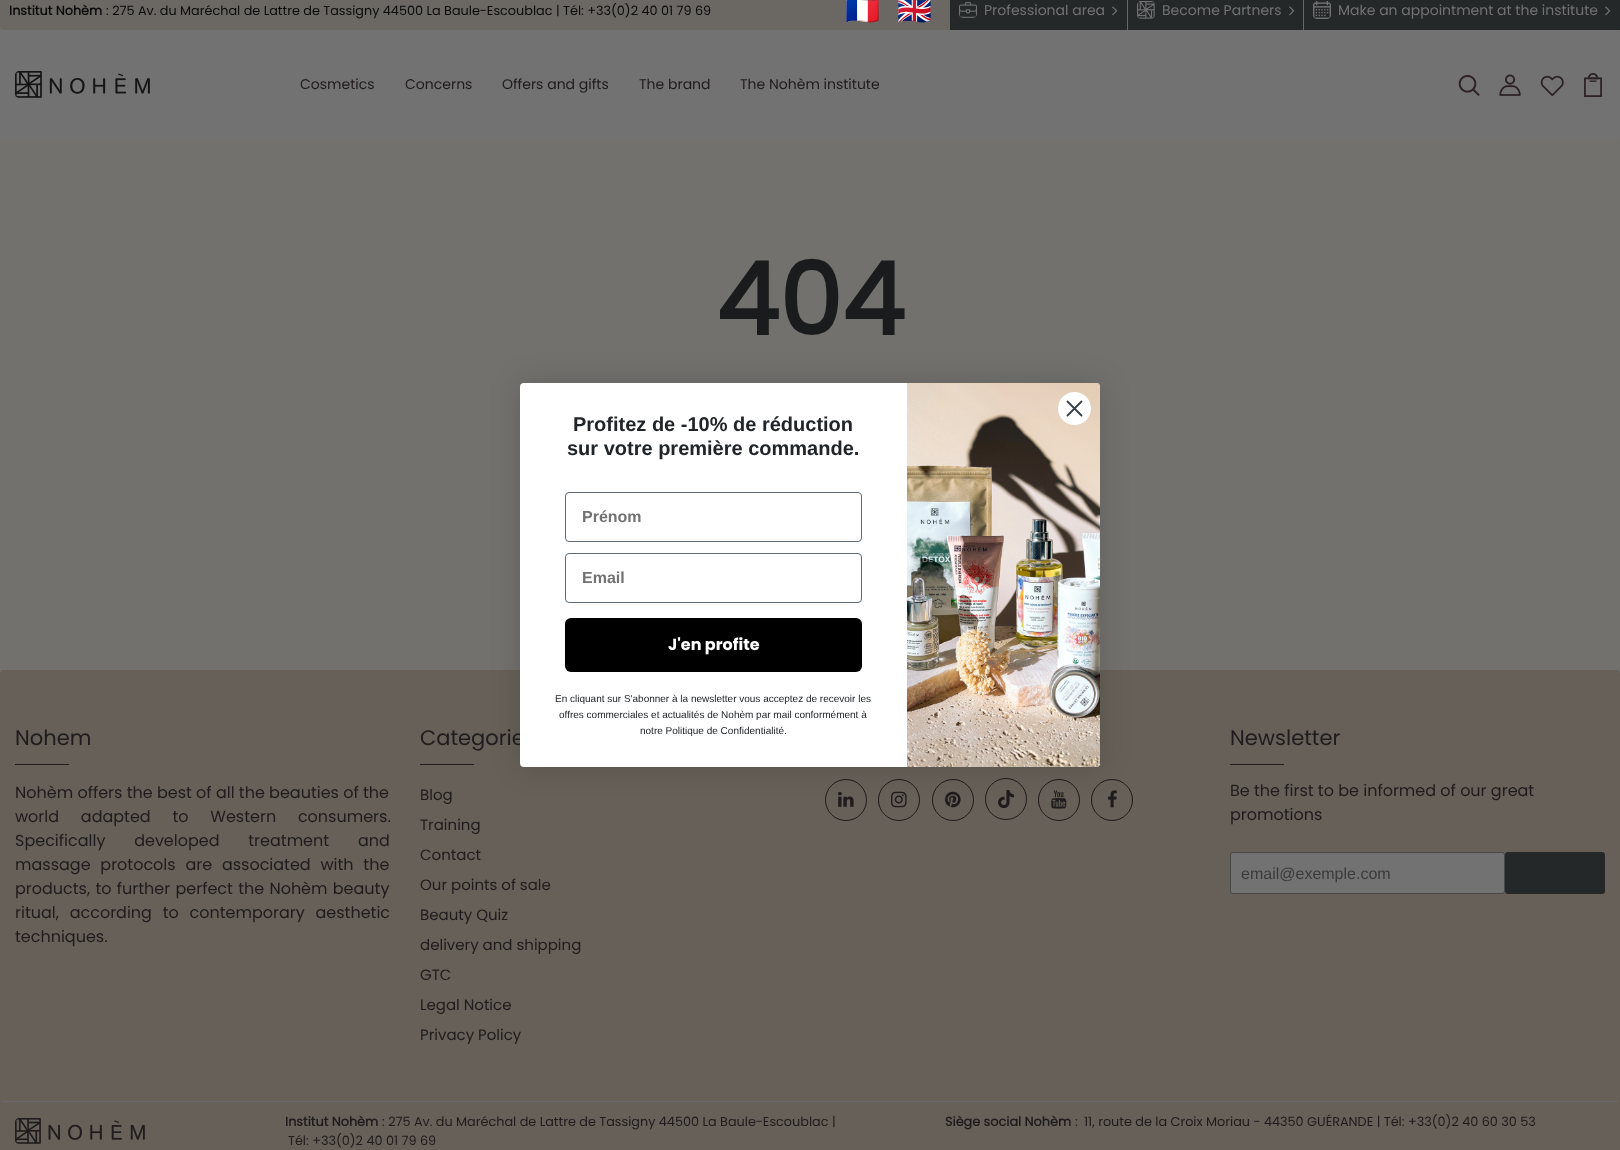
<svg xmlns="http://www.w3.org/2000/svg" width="1620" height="1150">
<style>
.a{font:bold 12.8px Poppins;fill:#0c0c0c}
.b{font:12.8px Poppins;fill:#0c0c0c}
.c{font:28px Noto Color Emoji;fill:#0c0c0c}
.d{font:14px Poppins;fill:#727272}
.e{font:14px Poppins;fill:#201b1c}
.f{font:bold 100px Poppins;fill:#191b1c}
.g{font:21px Poppins;fill:#201b1c}
.h{font:16px Poppins;fill:#201b1c}
.i{font:15px Poppins;fill:#201b1c}
.j{font:16px Liberation Sans;fill:#3b3b3b}
.k{font:bold 12.8px Poppins;fill:#201b1c}
.l{font:12.8px Poppins;fill:#201b1c}
.m{font:bold 20px Liberation Sans;fill:#212529}
.n{font:bold 16px Liberation Sans;fill:#727272}
.o{font:bold 16px 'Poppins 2';fill:#fff}
.p{font:10px Liberation Sans;fill:#212529}
</style>
<rect width="100%" height="100%" fill="#72716e"/>
<rect fill="#6b6863" y="-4" width="1620" height="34" rx="4"/>
<path fill="#252828" d="M950 0h177v30H950z"/>
<image href="1.png" x="959" y="2" width="18" height="16"/>
<image href="2.png" x="1112" y="6" width="6" height="10"/>
<path fill="#252828" d="M1128 0h175v30H1128z"/>
<image href="3.png" x="1137" y="1" width="18" height="18"/>
<image href="2.png" x="1289" y="6" width="6" height="10"/>
<path fill="#252828" d="M1304 0h316v30H1304z"/>
<image href="4.png" x="1313" y="1" width="18" height="18"/>
<image href="2.png" x="1605" y="6" width="6" height="10"/>
<rect fill="#727272" y="30" width="1620" height="110" rx="4"/>
<image href="5.png" x="15" y="71" width="135" height="27"/>
<image href="6.png" x="1458" y="75" width="22" height="21"/>
<image href="7.png" x="1499" y="74" width="22" height="22"/>
<image href="8.png" x="1540" y="75" width="24" height="22"/>
<image href="9.png" x="1584" y="73" width="18" height="24"/>
<rect fill="#666058" y="670" width="1620" height="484" rx="4"/>
<path fill="#201b1c" d="M15 764h54v1H15z"/>
<path fill="#201b1c" d="M420 764h54v1H420z"/>
<circle fill="none" stroke="#201b1c" cx="846" cy="800" r="20.5"/>
<image href="10.png" x="838" y="791" width="16" height="16"/>
<circle fill="none" stroke="#201b1c" cx="899" cy="800" r="20.5"/>
<image href="11.png" x="891" y="791" width="16" height="17"/>
<circle fill="none" stroke="#201b1c" cx="953" cy="800" r="20.5"/>
<image href="12.png" x="945" y="791" width="16" height="17"/>
<circle fill="none" stroke="#201b1c" cx="1006" cy="799" r="20.5"/>
<image href="13.png" x="998" y="790" width="16" height="18"/>
<circle fill="none" stroke="#201b1c" cx="1059" cy="800" r="20.5"/>
<image href="14.png" x="1051" y="790" width="16" height="19"/>
<circle fill="none" stroke="#201b1c" cx="1112" cy="800" r="20.5"/>
<image href="15.png" x="1107" y="790" width="10" height="18"/>
<path fill="#201b1c" d="M1230 764h54v1H1230z"/>
<rect fill="#727272" stroke="#474848" x="1230.5" y="852.5" width="274" height="41" rx="2.5"/>
<rect fill="#252828" x="1505" y="852" width="100" height="42" rx="3"/>
<path fill="#69696d" d="M2 1101h1616v1H2z"/>
<image href="16.png" x="15" y="1118" width="130" height="26"/>
<rect fill="#00000026" filter="blur(15px)" x="520" y="383" width="580" height="384" rx="4"/>
<text class="a" x="9" y="15">Institut Nohèm</text>
<text class="b" x="106" y="15">: 275 Av. du Maréchal de Lattre de Tassigny 44500 La Baule-Escoublac | Tél: +33(0)2 40 01 79 69</text>
<text class="c" x="845" y="20">🇫🇷</text>
<text class="c" x="897" y="20">🇬🇧</text>
<text class="d" x="984" y="15">Professional area</text>
<text class="d" x="1162" y="15">Become Partners</text>
<text class="d" x="1338" y="15">Make an appointment at the institute</text>
<text class="e" x="300" y="89">Cosmetics</text>
<text class="e" x="405" y="89">Concerns</text>
<text class="e" x="502" y="89">Offers and gifts</text>
<text class="e" x="639" y="89">The brand</text>
<text class="e" x="740" y="89">The Nohèm institute</text>
<text class="f" x="716" y="335">404</text>
<text class="g" x="15" y="745">Nohem</text>
<text class="h" x="15" y="798">Nohèm offers the best of all the beauties of the</text>
<text class="h" x="15" y="822" word-spacing="17.5">world adapted to Western consumers.</text>
<text class="h" x="15" y="846" word-spacing="24.5">Specifically developed treatment and</text>
<text class="h" x="15" y="870" word-spacing="5.5">massage protocols are associated with the</text>
<text class="h" x="15" y="894" word-spacing="1">products, to further perfect the Nohèm beauty</text>
<text class="h" x="15" y="918" word-spacing="6.5">ritual, according to contemporary aesthetic</text>
<text class="h" x="15" y="942">techniques.</text>
<text class="g" x="420" y="745">Categorie</text>
<text class="i" x="420" y="800">Blog</text>
<text class="i" x="420" y="830">Training</text>
<text class="i" x="420" y="860">Contact</text>
<text class="i" x="420" y="890">Our points of sale</text>
<text class="i" x="420" y="920">Beauty Quiz</text>
<text class="i" x="420" y="950">delivery and shipping</text>
<text class="i" x="420" y="980">GTC</text>
<text class="i" x="420" y="1010">Legal Notice</text>
<text class="i" x="420" y="1040">Privacy Policy</text>
<text class="g" x="1230" y="745">Newsletter</text>
<text class="h" x="1230" y="796">Be the first to be informed of our great</text>
<text class="h" x="1230" y="820">promotions</text>
<text class="j" x="1241" y="879">email@exemple.com</text>
<text class="k" x="285" y="1126">Institut Nohèm</text>
<text class="l" x="382" y="1126">: 275 Av. du Maréchal de Lattre de Tassigny 44500 La Baule-Escoublac |</text>
<text class="l" x="288" y="1145">Tél: +33(0)2 40 01 79 69</text>
<text class="k" x="945" y="1126">Siège social Nohèm</text>
<text class="l" x="1075" y="1126">:</text>
<text class="l" x="1084" y="1126">11, route de la Croix Moriau - 44350 GUÉRANDE | Tél: +33(0)2 40 60 30 53</text>
<rect fill="#fff" x="520" y="383" width="580" height="384" rx="4"/>
<text class="m" x="573" y="431">Profitez de -10% de réduction</text>
<text class="m" x="567" y="455">sur votre première commande.</text>
<rect fill="none" stroke="#606a72" x="565.5" y="492.5" width="296" height="49" rx="3.5"/>
<text class="n" x="582" y="522">Prénom</text>
<rect fill="none" stroke="#606a72" x="565.5" y="553.5" width="296" height="49" rx="3.5"/>
<text class="n" x="582" y="583">Email</text>
<rect fill="#000" x="565" y="618" width="297" height="54" rx="6"/>
<text class="o" x="668" y="650">J'en profite</text>
<text class="p" x="555" y="702">En cliquant sur S'abonner à la newsletter vous acceptez de recevoir les</text>
<text class="p" x="559" y="718">offres commerciales et actualités de Nohèm par mail conformément à</text>
<text class="p" x="640" y="734">notre Politique de Confidentialité.</text>
<image href="17.png" x="907" y="383" width="193" height="384"/>
<circle fill="#fff" cx="1074.5" cy="408.5" r="16.5"/>
<path fill="none" stroke="#373f47" stroke-width="1.8" stroke-linecap="round" stroke-linejoin="round" d="M1067.5 401.5l14 14m-14 0l14-14z"/>
</svg>
